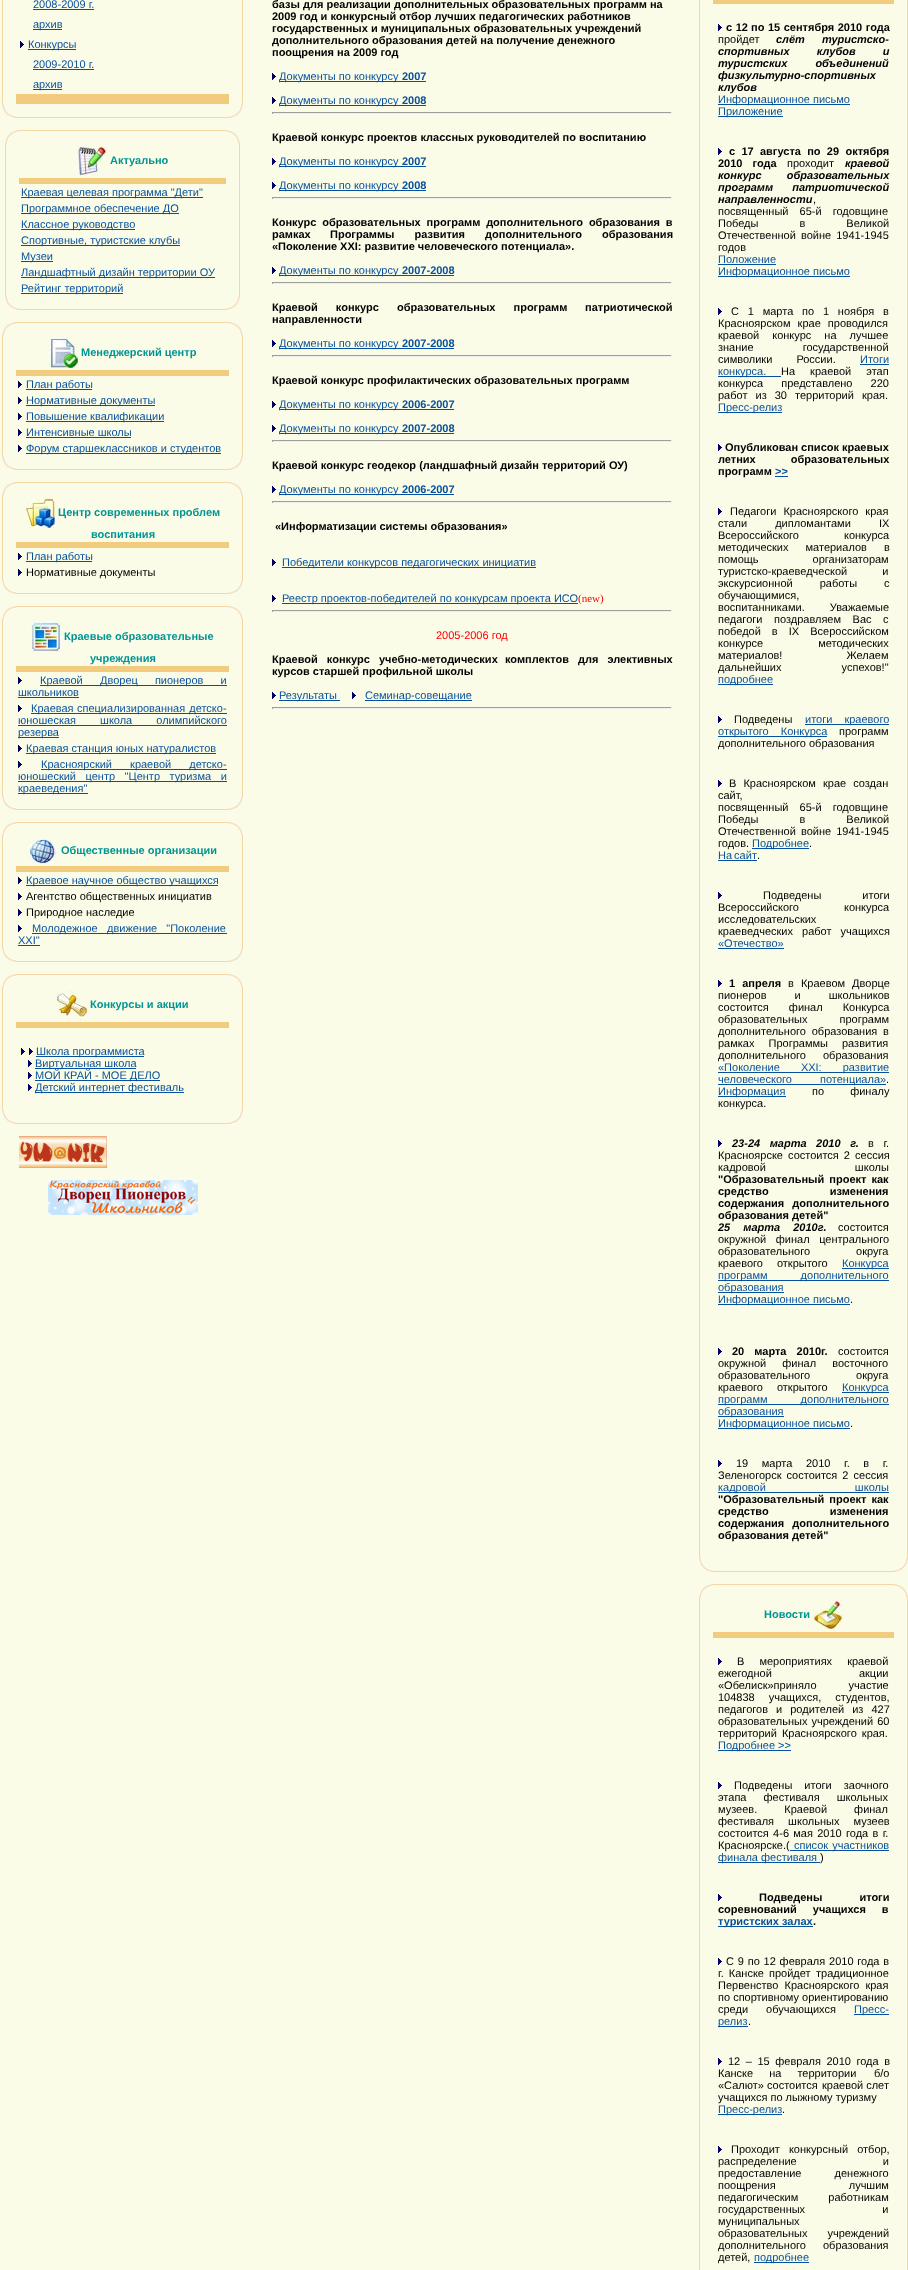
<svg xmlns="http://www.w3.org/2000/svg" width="908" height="2270">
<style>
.a{font:11px Liberation Sans;fill:#07509c}
.b{font:bold 11px Liberation Sans;fill:#009595}
.c{font:11px Liberation Sans;fill:#000}
.d{font:bold 11px Liberation Sans;fill:#000}
.e{font:bold 11px Liberation Sans;fill:#07509c}
.f{font:11px Liberation Serif;fill:#f00}
.g{font:11px Liberation Sans;fill:#f00}
.h{font:italic bold 11px Liberation Sans;fill:#000}
</style>
<rect width="100%" height="100%" fill="#fafce7"/>
<path fill="#f4d7a4" d="M2 0h1v104H2z"/>
<path fill="#07509c" d="M33 9h61v1H33z"/>
<path fill="#07509c" d="M33 29h29v1H33z"/>
<image href="1.png" x="20" y="41" width="4" height="7"/>
<path fill="#07509c" d="M28 49h48v1H28z"/>
<path fill="#07509c" d="M33 69h61v1H33z"/>
<path fill="#07509c" d="M33 89h29v1H33z"/>
<path fill="#f1cc7e" d="M16 94h213v10H16z"/>
<path fill="#f4d7a4" d="M242 0h1v104H242z"/>
<image href="2.png" x="2" y="104" width="14" height="14"/>
<path fill="#f4d7a4" d="M16 117h213v1H16z"/>
<image href="3.png" x="229" y="104" width="14" height="14"/>
<image href="4.png" x="5" y="130" width="14" height="14"/>
<path fill="#f4d7a4" d="M19 130h207v1H19z"/>
<image href="5.png" x="226" y="130" width="14" height="14"/>
<path fill="#f4d7a4" d="M5 144h1v152H5z"/>
<image href="6.png" x="77" y="146" width="30" height="30"/>
<path fill="#f1cc7e" d="M19 178h207v6H19z"/>
<path fill="#07509c" d="M21 197h182v1H21z"/>
<path fill="#07509c" d="M21 213h158v1H21z"/>
<path fill="#07509c" d="M21 229h114v1H21z"/>
<path fill="#07509c" d="M21 245h159v1H21z"/>
<path fill="#07509c" d="M21 261h32v1H21z"/>
<path fill="#07509c" d="M21 277h194v1H21z"/>
<path fill="#07509c" d="M21 293h102v1H21z"/>
<path fill="#f4d7a4" d="M239 144h1v152H239z"/>
<image href="2.png" x="5" y="296" width="14" height="14"/>
<path fill="#f4d7a4" d="M19 309h207v1H19z"/>
<image href="3.png" x="226" y="296" width="14" height="14"/>
<image href="4.png" x="2" y="322" width="14" height="14"/>
<path fill="#f4d7a4" d="M16 322h213v1H16z"/>
<image href="5.png" x="229" y="322" width="14" height="14"/>
<path fill="#f4d7a4" d="M2 336h1v120H2z"/>
<image href="7.png" x="48" y="338" width="30" height="30"/>
<path fill="#f1cc7e" d="M16 370h213v6H16z"/>
<image href="1.png" x="18" y="381" width="4" height="7"/>
<path fill="#07509c" d="M26 389h66v1H26z"/>
<image href="1.png" x="18" y="397" width="4" height="7"/>
<path fill="#07509c" d="M26 405h129v1H26z"/>
<image href="1.png" x="18" y="413" width="4" height="7"/>
<path fill="#07509c" d="M26 421h138v1H26z"/>
<image href="1.png" x="18" y="429" width="4" height="7"/>
<path fill="#07509c" d="M26 437h105v1H26z"/>
<image href="1.png" x="18" y="445" width="4" height="7"/>
<path fill="#07509c" d="M26 453h195v1H26z"/>
<path fill="#f4d7a4" d="M242 336h1v120H242z"/>
<image href="2.png" x="2" y="456" width="14" height="14"/>
<path fill="#f4d7a4" d="M16 469h213v1H16z"/>
<image href="3.png" x="229" y="456" width="14" height="14"/>
<image href="4.png" x="2" y="482" width="14" height="14"/>
<path fill="#f4d7a4" d="M16 482h213v1H16z"/>
<image href="5.png" x="229" y="482" width="14" height="14"/>
<path fill="#f4d7a4" d="M2 496h1v84H2z"/>
<image href="8.png" x="25" y="498" width="30" height="30"/>
<path fill="#f1cc7e" d="M16 542h213v6H16z"/>
<image href="1.png" x="18" y="553" width="4" height="7"/>
<path fill="#07509c" d="M26 561h66v1H26z"/>
<image href="1.png" x="18" y="569" width="4" height="7"/>
<path fill="#f4d7a4" d="M242 496h1v84H242z"/>
<image href="2.png" x="2" y="580" width="14" height="14"/>
<path fill="#f4d7a4" d="M16 593h213v1H16z"/>
<image href="3.png" x="229" y="580" width="14" height="14"/>
<image href="4.png" x="2" y="606" width="14" height="14"/>
<path fill="#f4d7a4" d="M16 606h213v1H16z"/>
<image href="5.png" x="229" y="606" width="14" height="14"/>
<path fill="#f4d7a4" d="M2 620h1v176H2z"/>
<image href="9.png" x="31" y="622" width="30" height="30"/>
<path fill="#f1cc7e" d="M16 666h213v6H16z"/>
<image href="1.png" x="18" y="677" width="4" height="7"/>
<path fill="#07509c" d="M40 685h187v1H40z"/>
<path fill="#07509c" d="M18 697h61v1H18z"/>
<image href="1.png" x="18" y="705" width="4" height="7"/>
<path fill="#07509c" d="M31 713h196v1H31z"/>
<path fill="#07509c" d="M18 725h209v1H18z"/>
<path fill="#07509c" d="M18 737h41v1H18z"/>
<image href="1.png" x="18" y="745" width="4" height="7"/>
<path fill="#07509c" d="M26 753h190v1H26z"/>
<image href="1.png" x="18" y="761" width="4" height="7"/>
<path fill="#07509c" d="M41 769h186v1H41z"/>
<path fill="#07509c" d="M18 781h209v1H18z"/>
<path fill="#07509c" d="M18 793h70v1H18z"/>
<path fill="#f4d7a4" d="M242 620h1v176H242z"/>
<image href="2.png" x="2" y="796" width="14" height="14"/>
<path fill="#f4d7a4" d="M16 809h213v1H16z"/>
<image href="3.png" x="229" y="796" width="14" height="14"/>
<image href="4.png" x="2" y="822" width="14" height="14"/>
<path fill="#f4d7a4" d="M16 822h213v1H16z"/>
<image href="5.png" x="229" y="822" width="14" height="14"/>
<path fill="#f4d7a4" d="M2 836h1v112H2z"/>
<image href="10.png" x="28" y="838" width="30" height="26"/>
<path fill="#f1cc7e" d="M16 866h213v6H16z"/>
<image href="1.png" x="18" y="877" width="4" height="7"/>
<path fill="#07509c" d="M26 885h192v1H26z"/>
<image href="1.png" x="18" y="893" width="4" height="7"/>
<image href="1.png" x="18" y="909" width="4" height="7"/>
<image href="1.png" x="18" y="925" width="4" height="7"/>
<path fill="#07509c" d="M32 933h195v1H32z"/>
<path fill="#07509c" d="M18 945h22v1H18z"/>
<path fill="#f4d7a4" d="M242 836h1v112H242z"/>
<image href="2.png" x="2" y="948" width="14" height="14"/>
<path fill="#f4d7a4" d="M16 961h213v1H16z"/>
<image href="3.png" x="229" y="948" width="14" height="14"/>
<image href="4.png" x="2" y="974" width="14" height="14"/>
<path fill="#f4d7a4" d="M16 974h213v1H16z"/>
<image href="5.png" x="229" y="974" width="14" height="14"/>
<path fill="#f4d7a4" d="M2 988h1v122H2z"/>
<image href="11.png" x="57" y="990" width="30" height="30"/>
<path fill="#f1cc7e" d="M16 1022h213v6H16z"/>
<image href="1.png" x="21" y="1048" width="4" height="7"/>
<image href="1.png" x="29" y="1048" width="4" height="7"/>
<path fill="#07509c" d="M36 1056h108v1H36z"/>
<image href="1.png" x="28" y="1060" width="4" height="7"/>
<path fill="#07509c" d="M35 1068h101v1H35z"/>
<image href="1.png" x="28" y="1072" width="4" height="7"/>
<path fill="#07509c" d="M35 1080h125v1H35z"/>
<image href="1.png" x="28" y="1084" width="4" height="7"/>
<path fill="#07509c" d="M35 1092h149v1H35z"/>
<path fill="#f4d7a4" d="M242 988h1v122H242z"/>
<image href="2.png" x="2" y="1110" width="14" height="14"/>
<path fill="#f4d7a4" d="M16 1123h213v1H16z"/>
<image href="3.png" x="229" y="1110" width="14" height="14"/>
<image href="12.png" x="19" y="1136" width="88" height="32"/>
<image href="13.png" x="48" y="1180" width="150" height="35"/>
<image href="1.png" x="272" y="73" width="4" height="7"/>
<path fill="#07509c" d="M279 81h147v1H279z"/>
<image href="1.png" x="272" y="97" width="4" height="7"/>
<path fill="#07509c" d="M279 105h147v1H279z"/>
<path fill="#9f9f9f" d="M272 112h400v1H272z"/>
<path fill="#eee" d="M671 112h1v2H671z"/>
<path fill="#eee" d="M272 113h400v1H272z"/>
<path fill="#9f9f9f" d="M272 112h1v2H272z"/>
<image href="1.png" x="272" y="158" width="4" height="7"/>
<path fill="#07509c" d="M279 166h147v1H279z"/>
<image href="1.png" x="272" y="182" width="4" height="7"/>
<path fill="#07509c" d="M279 190h147v1H279z"/>
<path fill="#9f9f9f" d="M272 197h400v1H272z"/>
<path fill="#eee" d="M671 197h1v2H671z"/>
<path fill="#eee" d="M272 198h400v1H272z"/>
<path fill="#9f9f9f" d="M272 197h1v2H272z"/>
<image href="1.png" x="272" y="267" width="4" height="7"/>
<path fill="#07509c" d="M279 275h175v1H279z"/>
<path fill="#9f9f9f" d="M272 282h400v1H272z"/>
<path fill="#eee" d="M671 282h1v2H671z"/>
<path fill="#eee" d="M272 283h400v1H272z"/>
<path fill="#9f9f9f" d="M272 282h1v2H272z"/>
<image href="1.png" x="272" y="340" width="4" height="7"/>
<path fill="#07509c" d="M279 348h175v1H279z"/>
<path fill="#9f9f9f" d="M272 355h400v1H272z"/>
<path fill="#eee" d="M671 355h1v2H671z"/>
<path fill="#eee" d="M272 356h400v1H272z"/>
<path fill="#9f9f9f" d="M272 355h1v2H272z"/>
<image href="1.png" x="272" y="401" width="4" height="7"/>
<path fill="#07509c" d="M279 409h175v1H279z"/>
<image href="1.png" x="272" y="425" width="4" height="7"/>
<path fill="#07509c" d="M279 433h175v1H279z"/>
<path fill="#9f9f9f" d="M272 440h400v1H272z"/>
<path fill="#eee" d="M671 440h1v2H671z"/>
<path fill="#eee" d="M272 441h400v1H272z"/>
<path fill="#9f9f9f" d="M272 440h1v2H272z"/>
<image href="1.png" x="272" y="486" width="4" height="7"/>
<path fill="#07509c" d="M279 494h175v1H279z"/>
<path fill="#9f9f9f" d="M272 501h400v1H272z"/>
<path fill="#eee" d="M671 501h1v2H671z"/>
<path fill="#eee" d="M272 502h400v1H272z"/>
<path fill="#9f9f9f" d="M272 501h1v2H272z"/>
<image href="1.png" x="272" y="559" width="4" height="7"/>
<path fill="#07509c" d="M282 567h254v1H282z"/>
<image href="1.png" x="272" y="595" width="4" height="7"/>
<path fill="#07509c" d="M282 603h296v1H282z"/>
<path fill="#9f9f9f" d="M272 610h400v1H272z"/>
<path fill="#eee" d="M671 610h1v2H671z"/>
<path fill="#eee" d="M272 611h400v1H272z"/>
<path fill="#9f9f9f" d="M272 610h1v2H272z"/>
<image href="1.png" x="272" y="692" width="4" height="7"/>
<path fill="#07509c" d="M279 700h61v1H279z"/>
<image href="1.png" x="352" y="692" width="4" height="7"/>
<path fill="#07509c" d="M365 700h107v1H365z"/>
<path fill="#9f9f9f" d="M272 707h400v1H272z"/>
<path fill="#eee" d="M671 707h1v2H671z"/>
<path fill="#eee" d="M272 708h400v1H272z"/>
<path fill="#9f9f9f" d="M272 707h1v2H272z"/>
<path fill="#f4d7a4" d="M699 0h1v1558H699z"/>
<path fill="#f1cc7e" d="M713 0h181v4H713z"/>
<image href="1.png" x="718" y="24" width="4" height="7"/>
<path fill="#07509c" d="M718 104h132v1H718z"/>
<path fill="#07509c" d="M718 116h65v1H718z"/>
<image href="1.png" x="718" y="148" width="4" height="7"/>
<path fill="#07509c" d="M718 264h58v1H718z"/>
<path fill="#07509c" d="M718 276h132v1H718z"/>
<image href="1.png" x="718" y="308" width="4" height="7"/>
<path fill="#07509c" d="M860 364h29v1H860z"/>
<path fill="#07509c" d="M718 376h63v1H718z"/>
<path fill="#07509c" d="M718 412h64v1H718z"/>
<image href="1.png" x="718" y="444" width="4" height="7"/>
<path fill="#07509c" d="M775 476h13v1H775z"/>
<image href="1.png" x="718" y="508" width="4" height="7"/>
<path fill="#07509c" d="M718 684h55v1H718z"/>
<image href="1.png" x="718" y="716" width="4" height="7"/>
<path fill="#07509c" d="M805 724h84v1H805z"/>
<path fill="#07509c" d="M718 736h109v1H718z"/>
<image href="1.png" x="718" y="780" width="4" height="7"/>
<path fill="#07509c" d="M752 848h57v1H752z"/>
<path fill="#07509c" d="M718 860h39v1H718z"/>
<image href="1.png" x="718" y="892" width="4" height="7"/>
<path fill="#07509c" d="M718 948h66v1H718z"/>
<image href="1.png" x="718" y="980" width="4" height="7"/>
<path fill="#07509c" d="M718 1072h171v1H718z"/>
<path fill="#07509c" d="M718 1084h168v1H718z"/>
<path fill="#07509c" d="M718 1096h68v1H718z"/>
<image href="1.png" x="718" y="1140" width="4" height="7"/>
<path fill="#07509c" d="M842 1268h47v1H842z"/>
<path fill="#07509c" d="M718 1280h171v1H718z"/>
<path fill="#07509c" d="M718 1292h66v1H718z"/>
<path fill="#07509c" d="M718 1304h132v1H718z"/>
<image href="1.png" x="718" y="1348" width="4" height="7"/>
<path fill="#07509c" d="M842 1392h47v1H842z"/>
<path fill="#07509c" d="M718 1404h171v1H718z"/>
<path fill="#07509c" d="M718 1416h66v1H718z"/>
<path fill="#07509c" d="M718 1428h132v1H718z"/>
<image href="1.png" x="718" y="1460" width="4" height="7"/>
<path fill="#07509c" d="M718 1492h171v1H718z"/>
<path fill="#f4d7a4" d="M907 0h1v1558H907z"/>
<image href="2.png" x="699" y="1558" width="14" height="14"/>
<path fill="#f4d7a4" d="M713 1571h181v1H713z"/>
<image href="3.png" x="894" y="1558" width="14" height="14"/>
<image href="4.png" x="699" y="1584" width="14" height="14"/>
<path fill="#f4d7a4" d="M713 1584h181v1H713z"/>
<image href="5.png" x="894" y="1584" width="14" height="14"/>
<path fill="#f4d7a4" d="M699 1598h1v672H699z"/>
<image href="14.png" x="813" y="1600" width="30" height="30"/>
<path fill="#f1cc7e" d="M713 1632h181v6H713z"/>
<image href="1.png" x="718" y="1658" width="4" height="7"/>
<path fill="#07509c" d="M718 1750h73v1H718z"/>
<image href="1.png" x="718" y="1782" width="4" height="7"/>
<path fill="#07509c" d="M790 1850h99v1H790z"/>
<path fill="#07509c" d="M718 1862h102v1H718z"/>
<image href="1.png" x="718" y="1894" width="4" height="7"/>
<path fill="#07509c" d="M718 1926h95v1H718z"/>
<image href="1.png" x="718" y="1958" width="4" height="7"/>
<path fill="#07509c" d="M854 2014h35v1H854z"/>
<path fill="#07509c" d="M718 2026h30v1H718z"/>
<image href="1.png" x="718" y="2058" width="4" height="7"/>
<path fill="#07509c" d="M718 2114h64v1H718z"/>
<image href="1.png" x="718" y="2146" width="4" height="7"/>
<path fill="#07509c" d="M754 2262h55v1H754z"/>
<path fill="#f4d7a4" d="M907 1598h1v672H907z"/>
<text class="a" x="33" y="8">2008-2009 г.</text>
<text class="a" x="33" y="28">архив</text>
<text class="a" x="28" y="48">Конкурсы</text>
<text class="a" x="33" y="68">2009-2010 г.</text>
<text class="a" x="33" y="88">архив</text>
<text class="b" x="110" y="164">Актуально</text>
<text class="a" x="21" y="196">Краевая целевая программа "Дети"</text>
<text class="a" x="21" y="212">Программное обеспечение ДО</text>
<text class="a" x="21" y="228">Классное руководство</text>
<text class="a" x="21" y="244">Спортивные, туристские клубы</text>
<text class="a" x="21" y="260">Музеи</text>
<text class="a" x="21" y="276">Ландшафтный дизайн территории ОУ</text>
<text class="a" x="21" y="292">Рейтинг территорий</text>
<text class="b" x="81" y="356">Менеджерский центр</text>
<text class="a" x="26" y="388">План работы</text>
<text class="a" x="26" y="404">Нормативные документы</text>
<text class="a" x="26" y="420">Повышение квалификации</text>
<text class="a" x="26" y="436">Интенсивные школы</text>
<text class="a" x="26" y="452">Форум старшеклассников и студентов</text>
<text class="b" x="58" y="516">Центр современных проблем</text>
<text class="b" x="91" y="538">воспитания</text>
<text class="a" x="26" y="560">План работы</text>
<text class="c" x="26" y="576">Нормативные документы</text>
<text class="b" x="64" y="640">Краевые образовательные</text>
<text class="b" x="90" y="662">учреждения</text>
<text class="a" x="40" y="684">Краевой</text>
<text class="a" x="100" y="684" word-spacing="14">Дворец пионеров и</text>
<text class="a" x="18" y="696">школьников</text>
<text class="a" x="31" y="712">Краевая</text>
<text class="a" x="77" y="712" word-spacing="1">специализированная детско-</text>
<text class="a" x="18" y="724" word-spacing="21">юношеская школа олимпийского</text>
<text class="a" x="18" y="736">резерва</text>
<text class="a" x="26" y="752">Краевая станция юных натуралистов</text>
<text class="a" x="41" y="768" word-spacing="15">Красноярский краевой детско-</text>
<text class="a" x="18" y="780" word-spacing="6.5">юношеский центр "Центр туризма и</text>
<text class="a" x="18" y="792">краеведения"</text>
<text class="b" x="61" y="854">Общественные организации</text>
<text class="a" x="26" y="884">Краевое научное общество учащихся</text>
<text class="c" x="26" y="900">Агентство общественных инициатив</text>
<text class="c" x="26" y="916">Природное наследие</text>
<text class="a" x="32" y="932">Молодежное</text>
<text class="a" x="107" y="932" word-spacing="6">движение "Поколение</text>
<text class="a" x="18" y="944">XXI"</text>
<text class="b" x="90" y="1008">Конкурсы и акции</text>
<text class="a" x="36" y="1055">Школа программиста</text>
<text class="a" x="35" y="1067">Виртуальная школа</text>
<text class="a" x="35" y="1079">МОЙ КРАЙ - МОЕ ДЕЛО</text>
<text class="a" x="35" y="1091">Детский интернет фестиваль</text>
<text class="d" x="272" y="8">базы для реализации дополнительных образовательных программ на</text>
<text class="d" x="272" y="20">2009 год и конкурсный отбор лучших педагогических работников</text>
<text class="d" x="272" y="32">государственных и муниципальных образовательных учреждений</text>
<text class="d" x="272" y="44">дополнительного образования детей на получение денежного</text>
<text class="d" x="272" y="56">поощрения на 2009 год</text>
<text class="a" x="279" y="80">Документы по конкурсу</text>
<text class="e" x="402" y="80">2007</text>
<text class="a" x="279" y="104">Документы по конкурсу</text>
<text class="e" x="402" y="104">2008</text>
<text class="d" x="272" y="141">Краевой конкурс проектов классных руководителей по воспитанию</text>
<text class="a" x="279" y="165">Документы по конкурсу</text>
<text class="e" x="402" y="165">2007</text>
<text class="a" x="279" y="189">Документы по конкурсу</text>
<text class="e" x="402" y="189">2008</text>
<text class="d" x="272" y="226" word-spacing="2.75">Конкурс образовательных программ дополнительного образования в</text>
<text class="d" x="272" y="238">рамках</text>
<text class="d" x="330" y="238" word-spacing="17">Программы развития дополнительного образования</text>
<text class="d" x="272" y="250">«Поколение XXI: развитие человеческого потенциала».</text>
<text class="a" x="279" y="274">Документы по конкурсу</text>
<text class="e" x="402" y="274">2007-2008</text>
<text class="d" x="272" y="311" word-spacing="15">Краевой конкурс образовательных программ</text>
<text class="d" x="585" y="311">патриотической</text>
<text class="d" x="272" y="323">направленности</text>
<text class="a" x="279" y="347">Документы по конкурсу</text>
<text class="e" x="402" y="347">2007-2008</text>
<text class="d" x="272" y="384">Краевой конкурс профилактических образовательных программ</text>
<text class="a" x="279" y="408">Документы по конкурсу</text>
<text class="e" x="402" y="408">2006-2007</text>
<text class="a" x="279" y="432">Документы по конкурсу</text>
<text class="e" x="402" y="432">2007-2008</text>
<text class="d" x="272" y="469">Краевой конкурс геодекор (ландшафный дизайн территорий ОУ)</text>
<text class="a" x="279" y="493">Документы по конкурсу</text>
<text class="e" x="402" y="493">2006-2007</text>
<text class="d" x="275" y="530">«Информатизации системы образования»</text>
<text class="a" x="282" y="566">Победители конкурсов педагогических инициатив</text>
<text class="a" x="282" y="602">Реестр проектов-победителей по конкурсам проекта ИСО</text>
<text class="f" x="578" y="602">(new)</text>
<text class="g" x="436" y="639">2005-2006 год</text>
<text class="d" x="272" y="663" word-spacing="6">Краевой конкурс учебно-методических</text>
<text class="d" x="505" y="663" word-spacing="6">комплектов для элективных</text>
<text class="d" x="272" y="675">курсов старшей профильной школы</text>
<text class="a" x="279" y="699">Результаты</text>
<text class="a" x="365" y="699">Семинар-совещание</text>
<text class="d" x="726" y="31" word-spacing="0.5">с 12</text>
<text class="d" x="751" y="31" word-spacing="0.5">по 15 сентября 2010 года</text>
<text class="c" x="718" y="43">пройдет</text>
<text class="h" x="776" y="43" word-spacing="14">слёт туристско-</text>
<text class="h" x="718" y="55" word-spacing="24">спортивных клубов и</text>
<text class="h" x="718" y="67" word-spacing="25">туристских объединений</text>
<text class="h" x="718" y="79">физкультурно-спортивных</text>
<text class="h" x="718" y="91">клубов</text>
<text class="a" x="718" y="103">Информационное письмо</text>
<text class="a" x="718" y="115">Приложение</text>
<text class="d" x="729" y="155" word-spacing="3.25">с 17 августа по 29 октября</text>
<text class="d" x="718" y="167" word-spacing="7">2010 года</text>
<text class="c" x="787" y="167">проходит</text>
<text class="h" x="845" y="167">краевой</text>
<text class="h" x="718" y="179" word-spacing="22">конкурс образовательных</text>
<text class="h" x="718" y="191" word-spacing="16">программ патриотической</text>
<text class="h" x="718" y="203">направленности</text>
<text class="c" x="813" y="203">,</text>
<text class="c" x="718" y="215" word-spacing="8">посвященный 65-й годовщине</text>
<text class="c" x="718" y="227" word-spacing="38">Победы в Великой</text>
<text class="c" x="718" y="239" word-spacing="2">Отечественной войне 1941-1945</text>
<text class="c" x="718" y="251">годов</text>
<text class="a" x="718" y="263">Положение</text>
<text class="a" x="718" y="275">Информационное письмо</text>
<text class="c" x="731" y="315" word-spacing="5.75">С 1 марта по 1 ноября в</text>
<text class="c" x="718" y="327" word-spacing="4">Красноярском крае проводился</text>
<text class="c" x="718" y="339" word-spacing="10">краевой конкурс на лучшее</text>
<text class="c" x="718" y="351" word-spacing="46">знание государственной</text>
<text class="c" x="718" y="363" word-spacing="21">символики России.</text>
<text class="a" x="860" y="363">Итоги</text>
<text class="a" x="718" y="375">конкурса.</text>
<text class="c" x="781" y="375" word-spacing="12">На краевой этап</text>
<text class="c" x="718" y="387" word-spacing="15">конкурса представлено 220</text>
<text class="c" x="718" y="399" word-spacing="5">работ из 30 территорий края.</text>
<text class="a" x="718" y="411">Пресс-релиз</text>
<text class="d" x="725" y="451">Опубликован список краевых</text>
<text class="d" x="718" y="463" word-spacing="32">летних образовательных</text>
<text class="d" x="718" y="475">программ</text>
<text class="e" x="775" y="475">&gt;&gt;</text>
<text class="c" x="730" y="515" word-spacing="4">Педагоги Красноярского края</text>
<text class="c" x="718" y="527" word-spacing="25">стали дипломантами IX</text>
<text class="c" x="718" y="539" word-spacing="42">Всероссийского конкурса</text>
<text class="c" x="718" y="551" word-spacing="14">методических материалов в</text>
<text class="c" x="718" y="563" word-spacing="51">помощь организаторам</text>
<text class="c" x="718" y="575" word-spacing="32">туристско-краеведческой и</text>
<text class="c" x="718" y="587" word-spacing="24">экскурсионной работы с</text>
<text class="c" x="718" y="599">обучающимися,</text>
<text class="c" x="718" y="611" word-spacing="22">воспитанниками. Уважаемые</text>
<text class="c" x="718" y="623" word-spacing="8.5">педагоги поздравляем Вас с</text>
<text class="c" x="718" y="635" word-spacing="8">победой в IX Всероссийском</text>
<text class="c" x="718" y="647" word-spacing="52">конкурсе методических</text>
<text class="c" x="718" y="659" word-spacing="61">материалов! Желаем</text>
<text class="c" x="718" y="671" word-spacing="57">дальнейших успехов!"</text>
<text class="a" x="718" y="683">подробнее</text>
<text class="c" x="734" y="723">Подведены</text>
<text class="a" x="805" y="723" word-spacing="9">итоги краевого</text>
<text class="a" x="718" y="735" word-spacing="9">открытого Конкурса</text>
<text class="c" x="839" y="735">программ</text>
<text class="c" x="718" y="747">дополнительного образования</text>
<text class="c" x="729" y="787" word-spacing="4">В Красноярском крае создан</text>
<text class="c" x="718" y="799">сайт,</text>
<text class="c" x="718" y="811" word-spacing="8">посвященный 65-й годовщине</text>
<text class="c" x="718" y="823" word-spacing="38">Победы в Великой</text>
<text class="c" x="718" y="835" word-spacing="2">Отечественной войне 1941-1945</text>
<text class="c" x="718" y="847">годов.</text>
<text class="a" x="752" y="847">Подробнее</text>
<text class="c" x="809" y="847">.</text>
<text class="a" x="718" y="859" word-spacing="-1">На сайт</text>
<text class="c" x="757" y="859">.</text>
<text class="c" x="763" y="899" word-spacing="38">Подведены итоги</text>
<text class="c" x="718" y="911" word-spacing="42">Всероссийского конкурса</text>
<text class="c" x="718" y="923">исследовательских</text>
<text class="c" x="718" y="935" word-spacing="6">краеведческих работ учащихся</text>
<text class="a" x="718" y="947">«Отечество»</text>
<text class="d" x="729" y="987" word-spacing="4">1 апреля</text>
<text class="c" x="788" y="987" word-spacing="4">в Краевом Дворце</text>
<text class="c" x="718" y="999" word-spacing="25">пионеров и школьников</text>
<text class="c" x="718" y="1011" word-spacing="17">состоится финал Конкурса</text>
<text class="c" x="718" y="1023" word-spacing="29">образовательных программ</text>
<text class="c" x="718" y="1035" word-spacing="2.75">дополнительного образования в</text>
<text class="c" x="718" y="1047" word-spacing="11">рамках Программы развития</text>
<text class="c" x="718" y="1059" word-spacing="14">дополнительного образования</text>
<text class="a" x="718" y="1071" word-spacing="18">«Поколение XXI: развитие</text>
<text class="a" x="718" y="1083" word-spacing="25">человеческого потенциала»</text>
<text class="c" x="886" y="1083">.</text>
<text class="a" x="718" y="1095">Информация</text>
<text class="c" x="812" y="1095" word-spacing="23">по финалу</text>
<text class="c" x="718" y="1107">конкурса.</text>
<text class="h" x="732" y="1147" word-spacing="6.5">23-24 марта 2010 г.</text>
<text class="c" x="868" y="1147" word-spacing="6.5">в г.</text>
<text class="c" x="718" y="1159" word-spacing="2">Красноярске состоится 2 сессия</text>
<text class="c" x="718" y="1171" word-spacing="86">кадровой школы</text>
<text class="d" x="718" y="1183" word-spacing="2">"Образовательный проект как</text>
<text class="d" x="718" y="1195" word-spacing="58">средство изменения</text>
<text class="d" x="718" y="1207" word-spacing="5">содержания дополнительного</text>
<text class="d" x="718" y="1219">образования детей"</text>
<text class="h" x="718" y="1231" word-spacing="10">25 марта 2010г.</text>
<text class="c" x="838" y="1231">состоится</text>
<text class="c" x="718" y="1243" word-spacing="6.5">окружной финал центрального</text>
<text class="c" x="718" y="1255" word-spacing="43">образовательного округа</text>
<text class="c" x="718" y="1267" word-spacing="11">краевого открытого</text>
<text class="a" x="842" y="1267">Конкурса</text>
<text class="a" x="718" y="1279" word-spacing="30">программ дополнительного</text>
<text class="a" x="718" y="1291">образования</text>
<text class="a" x="718" y="1303">Информационное письмо</text>
<text class="c" x="850" y="1303">.</text>
<text class="d" x="732" y="1355" word-spacing="7">20 марта 2010г.</text>
<text class="c" x="838" y="1355">состоится</text>
<text class="c" x="718" y="1367" word-spacing="13">окружной финал восточного</text>
<text class="c" x="718" y="1379" word-spacing="43">образовательного округа</text>
<text class="c" x="718" y="1391" word-spacing="11">краевого открытого</text>
<text class="a" x="842" y="1391">Конкурса</text>
<text class="a" x="718" y="1403" word-spacing="30">программ дополнительного</text>
<text class="a" x="718" y="1415">образования</text>
<text class="a" x="718" y="1427">Информационное письмо</text>
<text class="c" x="850" y="1427">.</text>
<text class="c" x="736" y="1467" word-spacing="10.5">19 марта 2010 г. в г.</text>
<text class="c" x="718" y="1479" word-spacing="2">Зеленогорск состоится 2 сессия</text>
<text class="a" x="718" y="1491" word-spacing="86">кадровой школы</text>
<text class="d" x="718" y="1503" word-spacing="2">"Образовательный проект как</text>
<text class="d" x="718" y="1515" word-spacing="58">средство изменения</text>
<text class="d" x="718" y="1527" word-spacing="5">содержания дополнительного</text>
<text class="d" x="718" y="1539">образования детей"</text>
<text class="b" x="764" y="1618">Новости</text>
<text class="c" x="737" y="1665" word-spacing="12">В мероприятиях краевой</text>
<text class="c" x="718" y="1677" word-spacing="84">ежегодной акции</text>
<text class="c" x="718" y="1689" word-spacing="29">«Обелиск»приняло участие</text>
<text class="c" x="718" y="1701" word-spacing="11">104838 учащихся, студентов,</text>
<text class="c" x="718" y="1713" word-spacing="5">педагогов и родителей из 427</text>
<text class="c" x="718" y="1725" word-spacing="1">образовательных учреждений 60</text>
<text class="c" x="718" y="1737" word-spacing="2">территорий Красноярского края.</text>
<text class="a" x="718" y="1749">Подробнее &gt;&gt;</text>
<text class="c" x="734" y="1789" word-spacing="9">Подведены итоги заочного</text>
<text class="c" x="718" y="1801" word-spacing="14">этапа фестиваля школьных</text>
<text class="c" x="718" y="1813" word-spacing="24">музеев. Краевой финал</text>
<text class="c" x="718" y="1825" word-spacing="11">фестиваля школьных музеев</text>
<text class="c" x="718" y="1837" word-spacing="1.25">состоится 4-6 мая 2010 года в г.</text>
<text class="c" x="718" y="1849">Красноярске.(</text>
<text class="a" x="794" y="1849" word-spacing="1">список участников</text>
<text class="a" x="718" y="1861">финала фестиваля</text>
<text class="c" x="820" y="1861">)</text>
<text class="d" x="759" y="1901" word-spacing="34">Подведены итоги</text>
<text class="d" x="718" y="1913" word-spacing="13">соревнований учащихся в</text>
<text class="e" x="718" y="1925">туристских залах</text>
<text class="d" x="813" y="1925">.</text>
<text class="c" x="726" y="1965" word-spacing="0.75">С 9 по 12 февраля 2010 года в</text>
<text class="c" x="718" y="1977" word-spacing="2">г. Канске пройдет</text>
<text class="c" x="816" y="1977">традиционное</text>
<text class="c" x="718" y="1989" word-spacing="3">Первенство Красноярского края</text>
<text class="c" x="718" y="2001">по спортивному ориентированию</text>
<text class="c" x="718" y="2013" word-spacing="15">среди обучающихся</text>
<text class="a" x="854" y="2013">Пресс-</text>
<text class="a" x="718" y="2025">релиз</text>
<text class="c" x="748" y="2025">.</text>
<text class="c" x="728" y="2065" word-spacing="2.5">12 – 15 февраля 2010 года в</text>
<text class="c" x="718" y="2077" word-spacing="13">Канске на территории</text>
<text class="c" x="874" y="2077">б/о</text>
<text class="c" x="718" y="2089">«Салют» состоится</text>
<text class="c" x="822" y="2089">краевой слет</text>
<text class="c" x="718" y="2101">учащихся по лыжному туризму</text>
<text class="a" x="718" y="2113">Пресс-релиз</text>
<text class="c" x="782" y="2113">.</text>
<text class="c" x="731" y="2153" word-spacing="6">Проходит конкурсный отбор,</text>
<text class="c" x="718" y="2165" word-spacing="83">распределение и</text>
<text class="c" x="718" y="2177" word-spacing="30">предоставление денежного</text>
<text class="c" x="718" y="2189" word-spacing="70">поощрения лучшим</text>
<text class="c" x="718" y="2201" word-spacing="27">педагогическим работникам</text>
<text class="c" x="718" y="2213" word-spacing="74">государственных и</text>
<text class="c" x="718" y="2225">муниципальных</text>
<text class="c" x="718" y="2237" word-spacing="17">образовательных учреждений</text>
<text class="c" x="718" y="2249" word-spacing="14">дополнительного образования</text>
<text class="c" x="718" y="2261">детей,</text>
<text class="a" x="754" y="2261">подробнее</text>
</svg>
